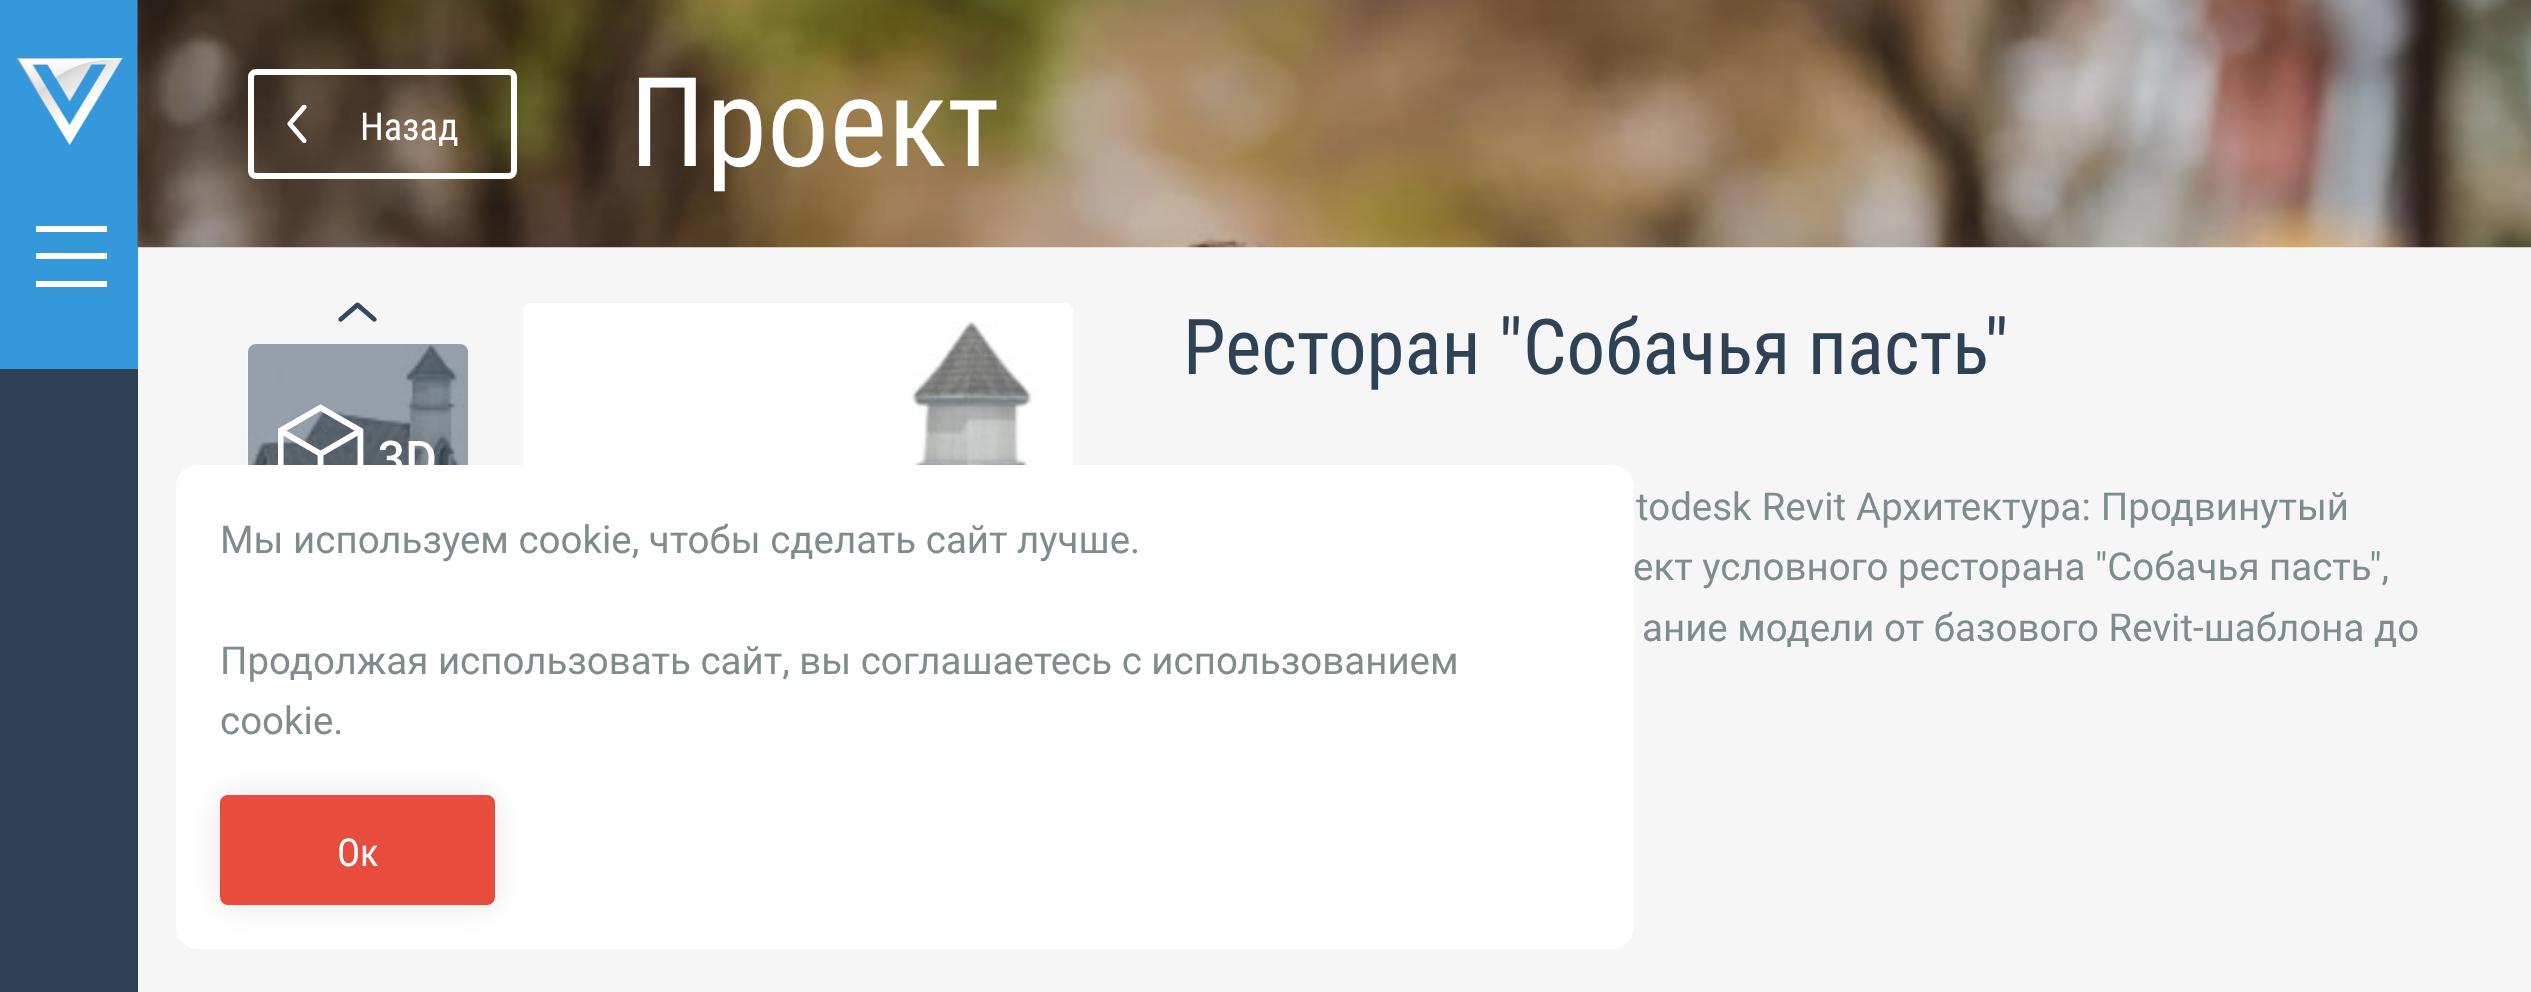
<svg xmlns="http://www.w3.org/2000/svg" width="2531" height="992">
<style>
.a{font:38.5px Roboto Condensed;fill:#fff}
.b{font:124px Roboto Condensed;fill:#fff}
.c{font:77px Roboto Condensed;fill:#2e4256}
.d{font:38.5px Roboto;fill:#7f8c8d}
</style>
<rect width="100%" height="100%" fill="#f6f6f6"/>
<path fill="#2e4256" d="M0 369h138v623H0z"/>
<path fill="#3498db" d="M0 0h138v369H0z"/>
<image href="1.png" x="16" y="58" width="107" height="87"/>
<path fill="#fff" d="M36 226h71v6H36z"/>
<path fill="#fff" d="M36 253h71v6H36z"/>
<path fill="#fff" d="M36 281h71v6H36z"/>
<image href="2.png" x="137" y="0" width="2394" height="248"/>
<rect fill="none" stroke="#fff" stroke-width="6" x="251" y="72" width="263" height="104" rx="5"/>
<image href="3.png" x="287" y="105" width="20" height="38"/>
<image href="4.png" x="338" y="302" width="39" height="20"/>
<image href="5.png" x="247" y="344" width="221" height="121"/>
<rect fill="#2e425680" x="248" y="344" width="220" height="220" rx="8"/>
<image href="6.png" x="278" y="404" width="157" height="61"/>
<rect fill="#fff" x="523" y="303" width="550" height="550" rx="8"/>
<image href="7.png" x="523" y="321" width="549" height="144"/>
<rect fill="#fff" x="176" y="465" width="1458" height="484" rx="22"/>
<rect fill="#0000001a" filter="blur(15px)" x="220" y="795" width="275" height="110" rx="8"/>
<rect fill="#e74c3c" stroke="#e74c3c" stroke-width="6" x="223" y="798" width="269" height="104" rx="5"/>
<text class="a" x="360" y="140">Назад</text>
<text class="b" x="629" y="166">Проект</text>
<text class="c" x="1183" y="374">Ресторан "Собачья пасть"</text>
<text class="d" x="1636" y="520" word-spacing="0.5">todesk Revit Архитектура: Продвинутый</text>
<text class="d" x="1633" y="580">ект условного ресторана "Собачья пасть",</text>
<text class="d" x="1642" y="641">ание модели от базового Revit-шаблона до</text>
<text class="d" x="220" y="553">Мы используем cookie, чтобы сделать сайт лучше.</text>
<text class="d" x="220" y="674">Продолжая использовать сайт, вы соглашаетесь с использованием</text>
<text class="d" x="220" y="734">cookie.</text>
<text class="a" x="337" y="866">Ок</text>
</svg>
